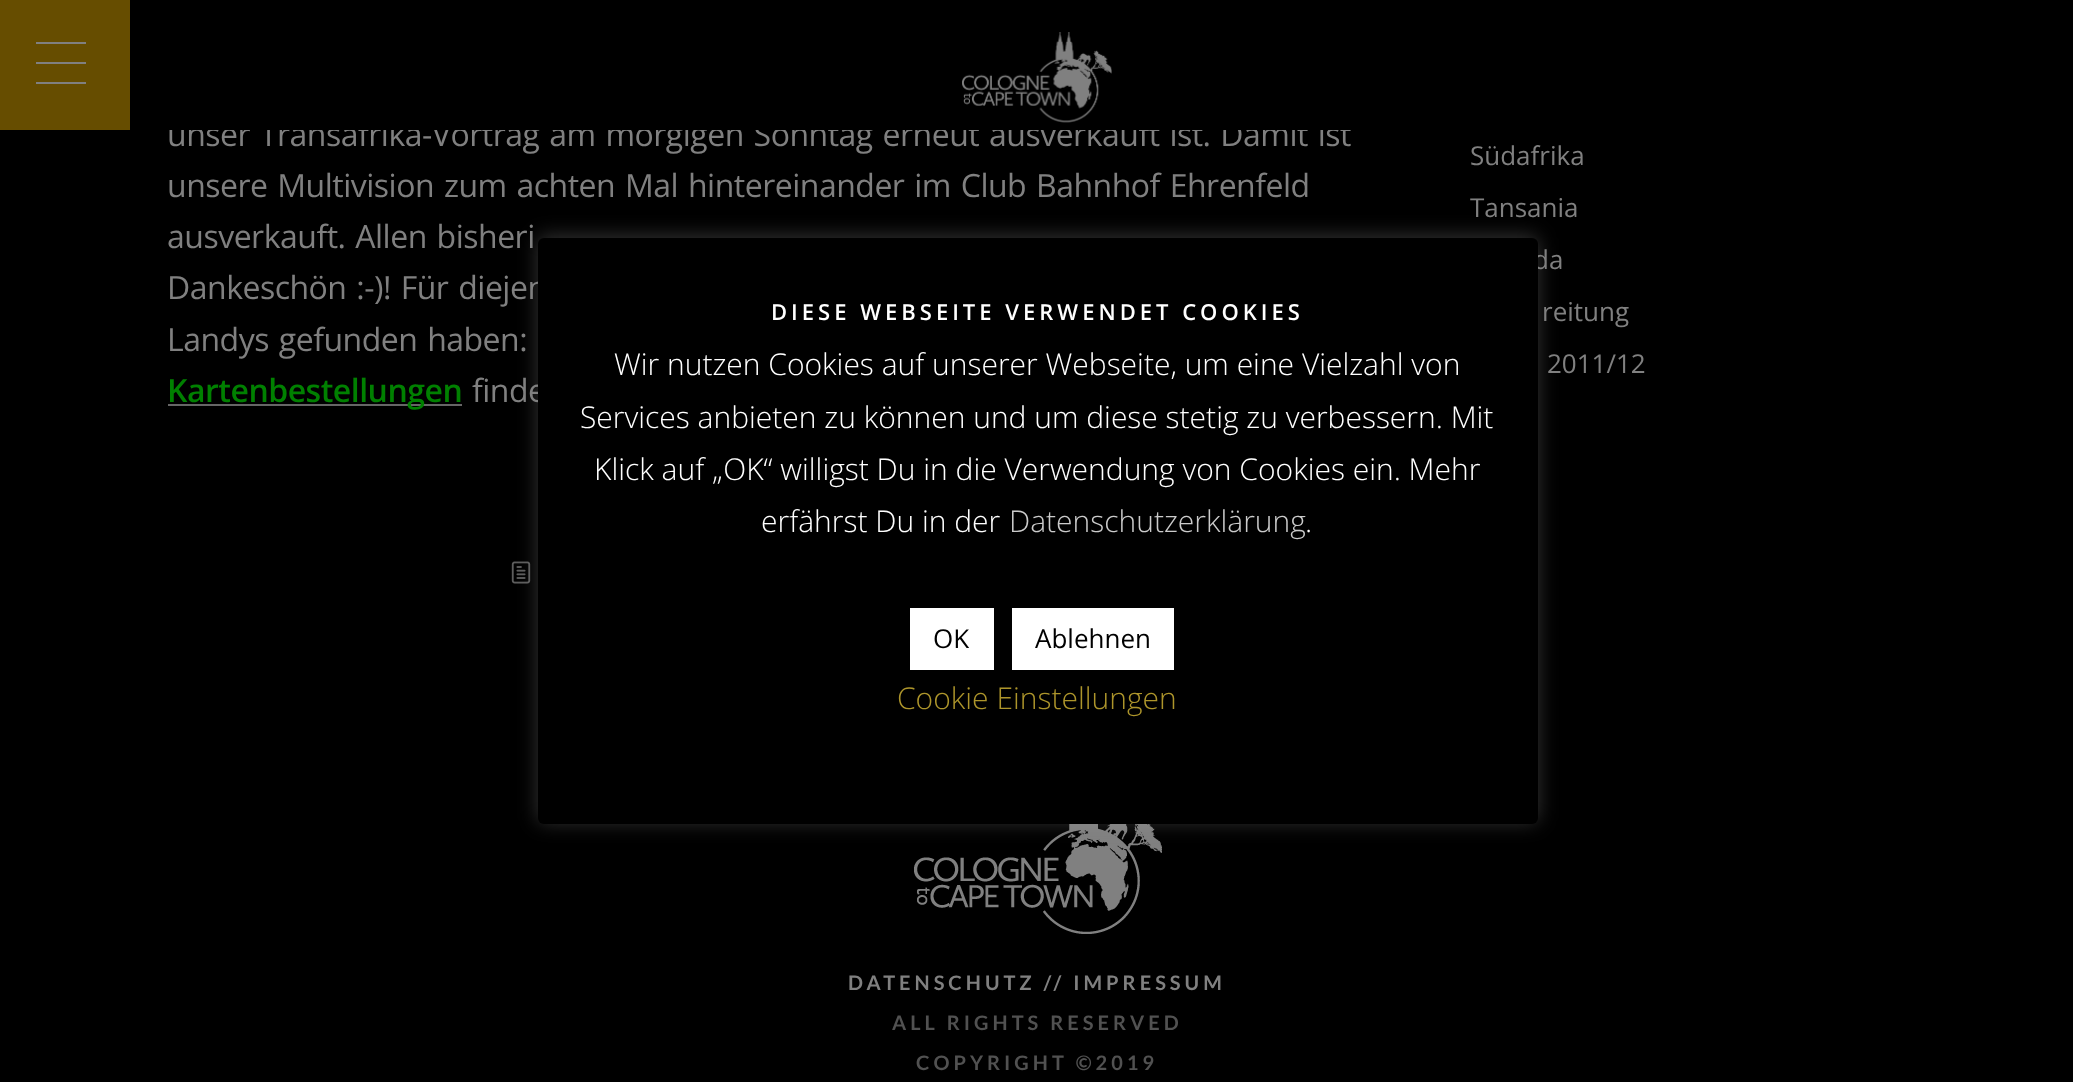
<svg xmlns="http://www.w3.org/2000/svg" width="2073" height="1082">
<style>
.a{font:32px Open Sans;letter-spacing:-0.5px;fill:#808080}
.b{font:600 32px Open Sans;letter-spacing:-0.5px;fill:#008000}
.c{font:26px Open Sans;fill:#808080}
.d{font:bold 20px Lato;letter-spacing:4px;fill:#808080}
.e{font:bold 20px Lato;letter-spacing:4px;fill:#515151}
.f{font:600 22px Open Sans;letter-spacing:4px;fill:#fff}
.g{font:300 30px Open Sans;fill:#fff}
.h{font:300 30px Open Sans;fill:#cbcbcb}
.i{font:26px Open Sans;fill:#000}
.j{font:300 30px Open Sans;fill:#ad952b}
</style>
<rect width="100%" height="100%" fill="#000"/>
<path fill="#664d00" d="M0 0h130v130H0z"/>
<path fill="#808080" d="M36 62h50v2H36z"/>
<path fill="#808080" d="M36 42h50v2H36z"/>
<path fill="#808080" d="M36 82h50v2H36z"/>
<path fill="#666" d="M168 404h294v2H168z"/>
<image href="2.png" x="511" y="561" width="20" height="23"/>
<image href="3.png" x="914" y="824" width="248" height="110"/>
<rect fill="#acabab4d" filter="blur(10px)" x="538" y="236" width="1000" height="586" rx="6"/>
<text class="a" x="167" y="146" word-spacing="2">unser Transafrika-Vortrag am morgigen Sonntag erneut ausverkauft ist. Damit ist</text>
<path fill="#000" d="M169 121h1182v9H169z"/>
<image href="1.png" x="962" y="32" width="150" height="91"/>
<text class="a" x="167" y="197" word-spacing="2">unsere Multivision zum achten Mal hintereinander im Club Bahnhof Ehrenfeld</text>
<text class="a" x="167" y="248" word-spacing="2">ausverkauft. Allen bisheri</text>
<text class="a" x="167" y="299" word-spacing="2">Dankeschön :-)! Für diejen</text>
<text class="a" x="167" y="351" word-spacing="2">Landys gefunden haben:</text>
<text class="b" x="167" y="402">Kartenbestellungen</text>
<text class="a" x="472" y="402" word-spacing="2">finde</text>
<text class="c" x="1470" y="165">Südafrika</text>
<text class="c" x="1470" y="217">Tansania</text>
<text class="c" x="1533" y="269">da</text>
<text class="c" x="1542" y="321">reitung</text>
<text class="c" x="1547" y="373">2011/12</text>
<text class="d" x="848" y="990">DATENSCHUTZ // IMPRESSUM</text>
<text class="e" x="892" y="1030">ALL RIGHTS RESERVED</text>
<text class="e" x="916" y="1070">COPYRIGHT ©2019</text>
<rect fill="#000" x="538" y="238" width="1000" height="586" rx="6"/>
<text class="f" x="771" y="320">DIESE WEBSEITE VERWENDET COOKIES</text>
<text class="g" x="614" y="375">Wir nutzen Cookies auf unserer Webseite, um eine Vielzahl von</text>
<text class="g" x="580" y="428">Services anbieten zu können und um diese stetig zu verbessern. Mit</text>
<text class="g" x="594" y="480">Klick auf „OK“ willigst Du in die Verwendung von Cookies ein. Mehr</text>
<text class="g" x="761" y="532">erfährst Du in der</text>
<text class="h" x="1009" y="532">Datenschutzerklärung</text>
<text class="g" x="1305" y="532">.</text>
<path fill="#fff" d="M910 608h84v62H910z"/>
<text class="i" x="933" y="648">OK</text>
<path fill="#fff" d="M1012 608h162v62H1012z"/>
<text class="i" x="1035" y="648">Ablehnen</text>
<text class="j" x="897" y="709">Cookie Einstellungen</text>
</svg>
